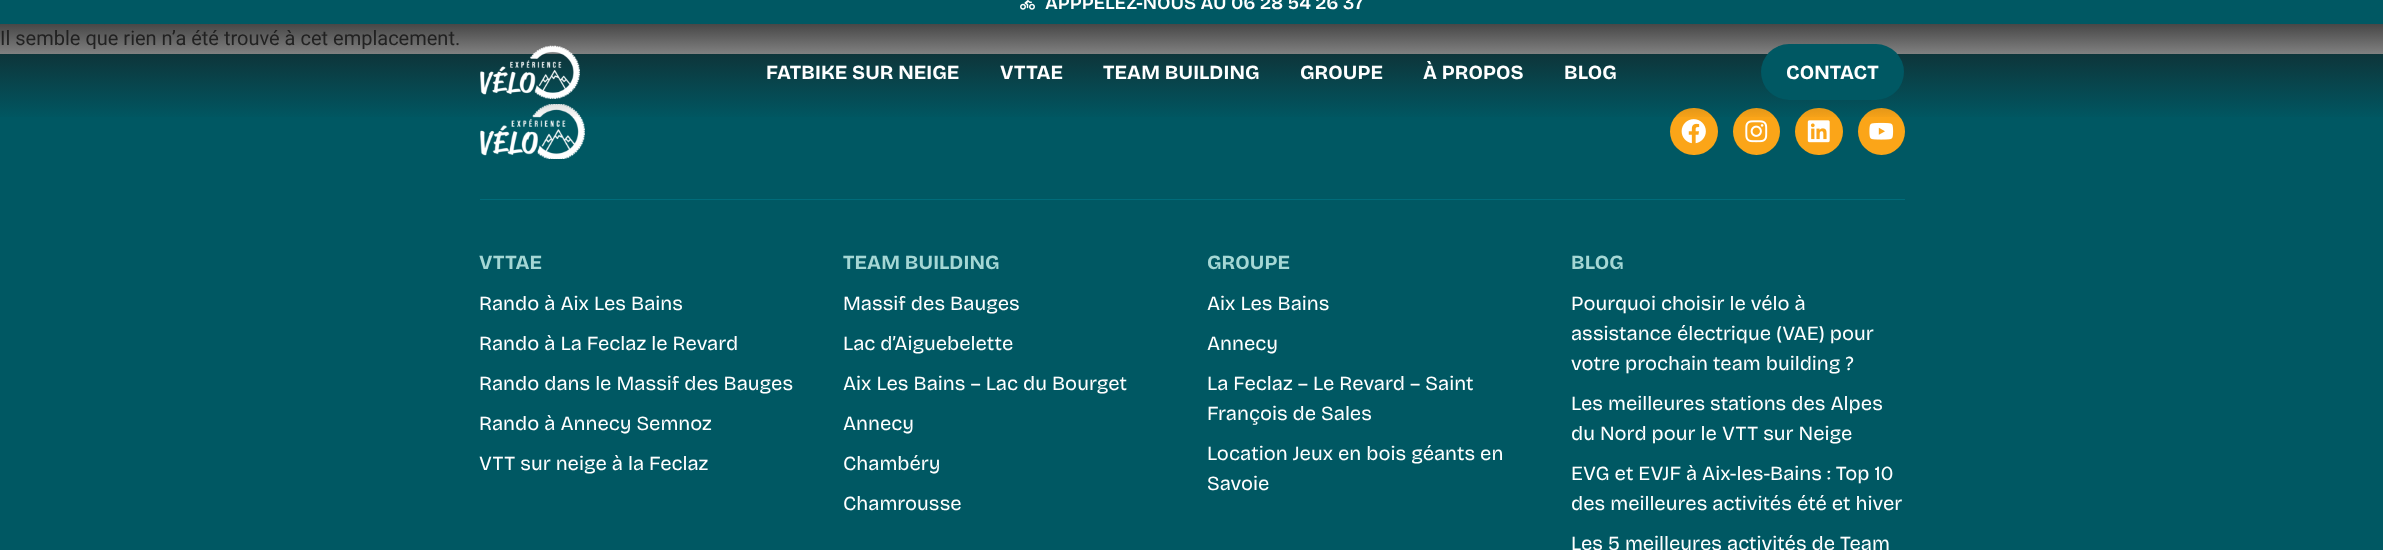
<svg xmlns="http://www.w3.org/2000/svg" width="2383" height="550">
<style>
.a{font:20px Roboto;fill:#333}
.b{font:600 18.75px Bricolage Grotesque;fill:#fff}
.c{font:bold 20px Bricolage Grotesque;letter-spacing:0.1px;fill:#fff}
.d{font:bold 20px Bricolage Grotesque;letter-spacing:0.1px;fill:#a5d7d5}
.e{font:20px Bricolage Grotesque;fill:#fff}
</style>
<defs>
<linearGradient id="g1" gradientUnits="userSpaceOnUse" x1="1192" y1="24" x2="1192" y2="120"><stop offset="0" stop-color="#191919" stop-opacity="0.8"/><stop offset="1" stop-color="#191919" stop-opacity="0"/></linearGradient>
</defs>
<rect width="100%" height="100%" fill="#fff"/>
<path fill="#005863" d="M0 0h2383v24H0z"/>
<image href="1.png" x="1020" y="0" width="15" height="10"/>
<path fill="#005863" d="M0 54h2383v496H0z"/>
<path fill="#006c7a" d="M480 199h1425v1H480z"/>
<image href="3.png" x="480" y="104" width="105" height="55"/>
<rect fill="#fba518" x="1670" y="108" width="48" height="47" rx="23.5"/>
<image href="4.png" x="1681" y="119" width="25" height="25"/>
<circle fill="#fba518" cx="1756.5" cy="131.5" r="23.5"/>
<image href="5.png" x="1745" y="120" width="23" height="23"/>
<rect fill="#fba518" x="1795" y="108" width="48" height="47" rx="23.5"/>
<image href="6.png" x="1807" y="120" width="23" height="23"/>
<circle fill="#fba518" cx="1881.5" cy="131.5" r="23.5"/>
<image href="7.png" x="1869" y="122" width="25" height="18"/>
<text class="a" x="0" y="45">Il semble que rien n’a été trouvé à cet emplacement.</text>
<text class="b" x="1045" y="9">APPPELEZ-NOUS AU 06 28 54 26 37</text>
<path fill="url(#g1)" d="M0 24h2383v93H0z"/>
<image href="2.png" x="480" y="45" width="100" height="54"/>
<text class="c" x="766" y="79">FATBIKE SUR NEIGE</text>
<text class="c" x="1000" y="79">VTTAE</text>
<text class="c" x="1103" y="79">TEAM BUILDING</text>
<text class="c" x="1300" y="79">GROUPE</text>
<text class="c" x="1423" y="79">À PROPOS</text>
<text class="c" x="1564" y="79">BLOG</text>
<rect fill="#005863" x="1761" y="44" width="143" height="56" rx="28"/>
<text class="c" x="1786" y="79">CONTACT</text>
<text class="d" x="479" y="269">VTTAE</text>
<text class="e" x="479" y="310">Rando à Aix Les Bains</text>
<text class="e" x="479" y="350">Rando à La Feclaz le Revard</text>
<text class="e" x="479" y="390">Rando dans le Massif des Bauges</text>
<text class="e" x="479" y="430">Rando à Annecy Semnoz</text>
<text class="e" x="479" y="470">VTT sur neige à la Feclaz</text>
<text class="d" x="843" y="269">TEAM BUILDING</text>
<text class="e" x="843" y="310">Massif des Bauges</text>
<text class="e" x="843" y="350">Lac d’Aiguebelette</text>
<text class="e" x="843" y="390">Aix Les Bains – Lac du Bourget</text>
<text class="e" x="843" y="430">Annecy</text>
<text class="e" x="843" y="470">Chambéry</text>
<text class="e" x="843" y="510">Chamrousse</text>
<text class="d" x="1207" y="269">GROUPE</text>
<text class="e" x="1207" y="310">Aix Les Bains</text>
<text class="e" x="1207" y="350">Annecy</text>
<text class="e" x="1207" y="390">La Feclaz – Le Revard – Saint</text>
<text class="e" x="1207" y="420">François de Sales</text>
<text class="e" x="1207" y="460">Location Jeux en bois géants en</text>
<text class="e" x="1207" y="490">Savoie</text>
<text class="d" x="1571" y="269">BLOG</text>
<text class="e" x="1571" y="310">Pourquoi choisir le vélo à</text>
<text class="e" x="1571" y="340">assistance électrique (VAE) pour</text>
<text class="e" x="1571" y="370">votre prochain team building ?</text>
<text class="e" x="1571" y="410">Les meilleures stations des Alpes</text>
<text class="e" x="1571" y="440">du Nord pour le VTT sur Neige</text>
<text class="e" x="1571" y="480">EVG et EVJF à Aix-les-Bains : Top 10</text>
<text class="e" x="1571" y="510">des meilleures activités été et hiver</text>
<text class="e" x="1571" y="550">Les 5 meilleures activités de Team</text>
</svg>
